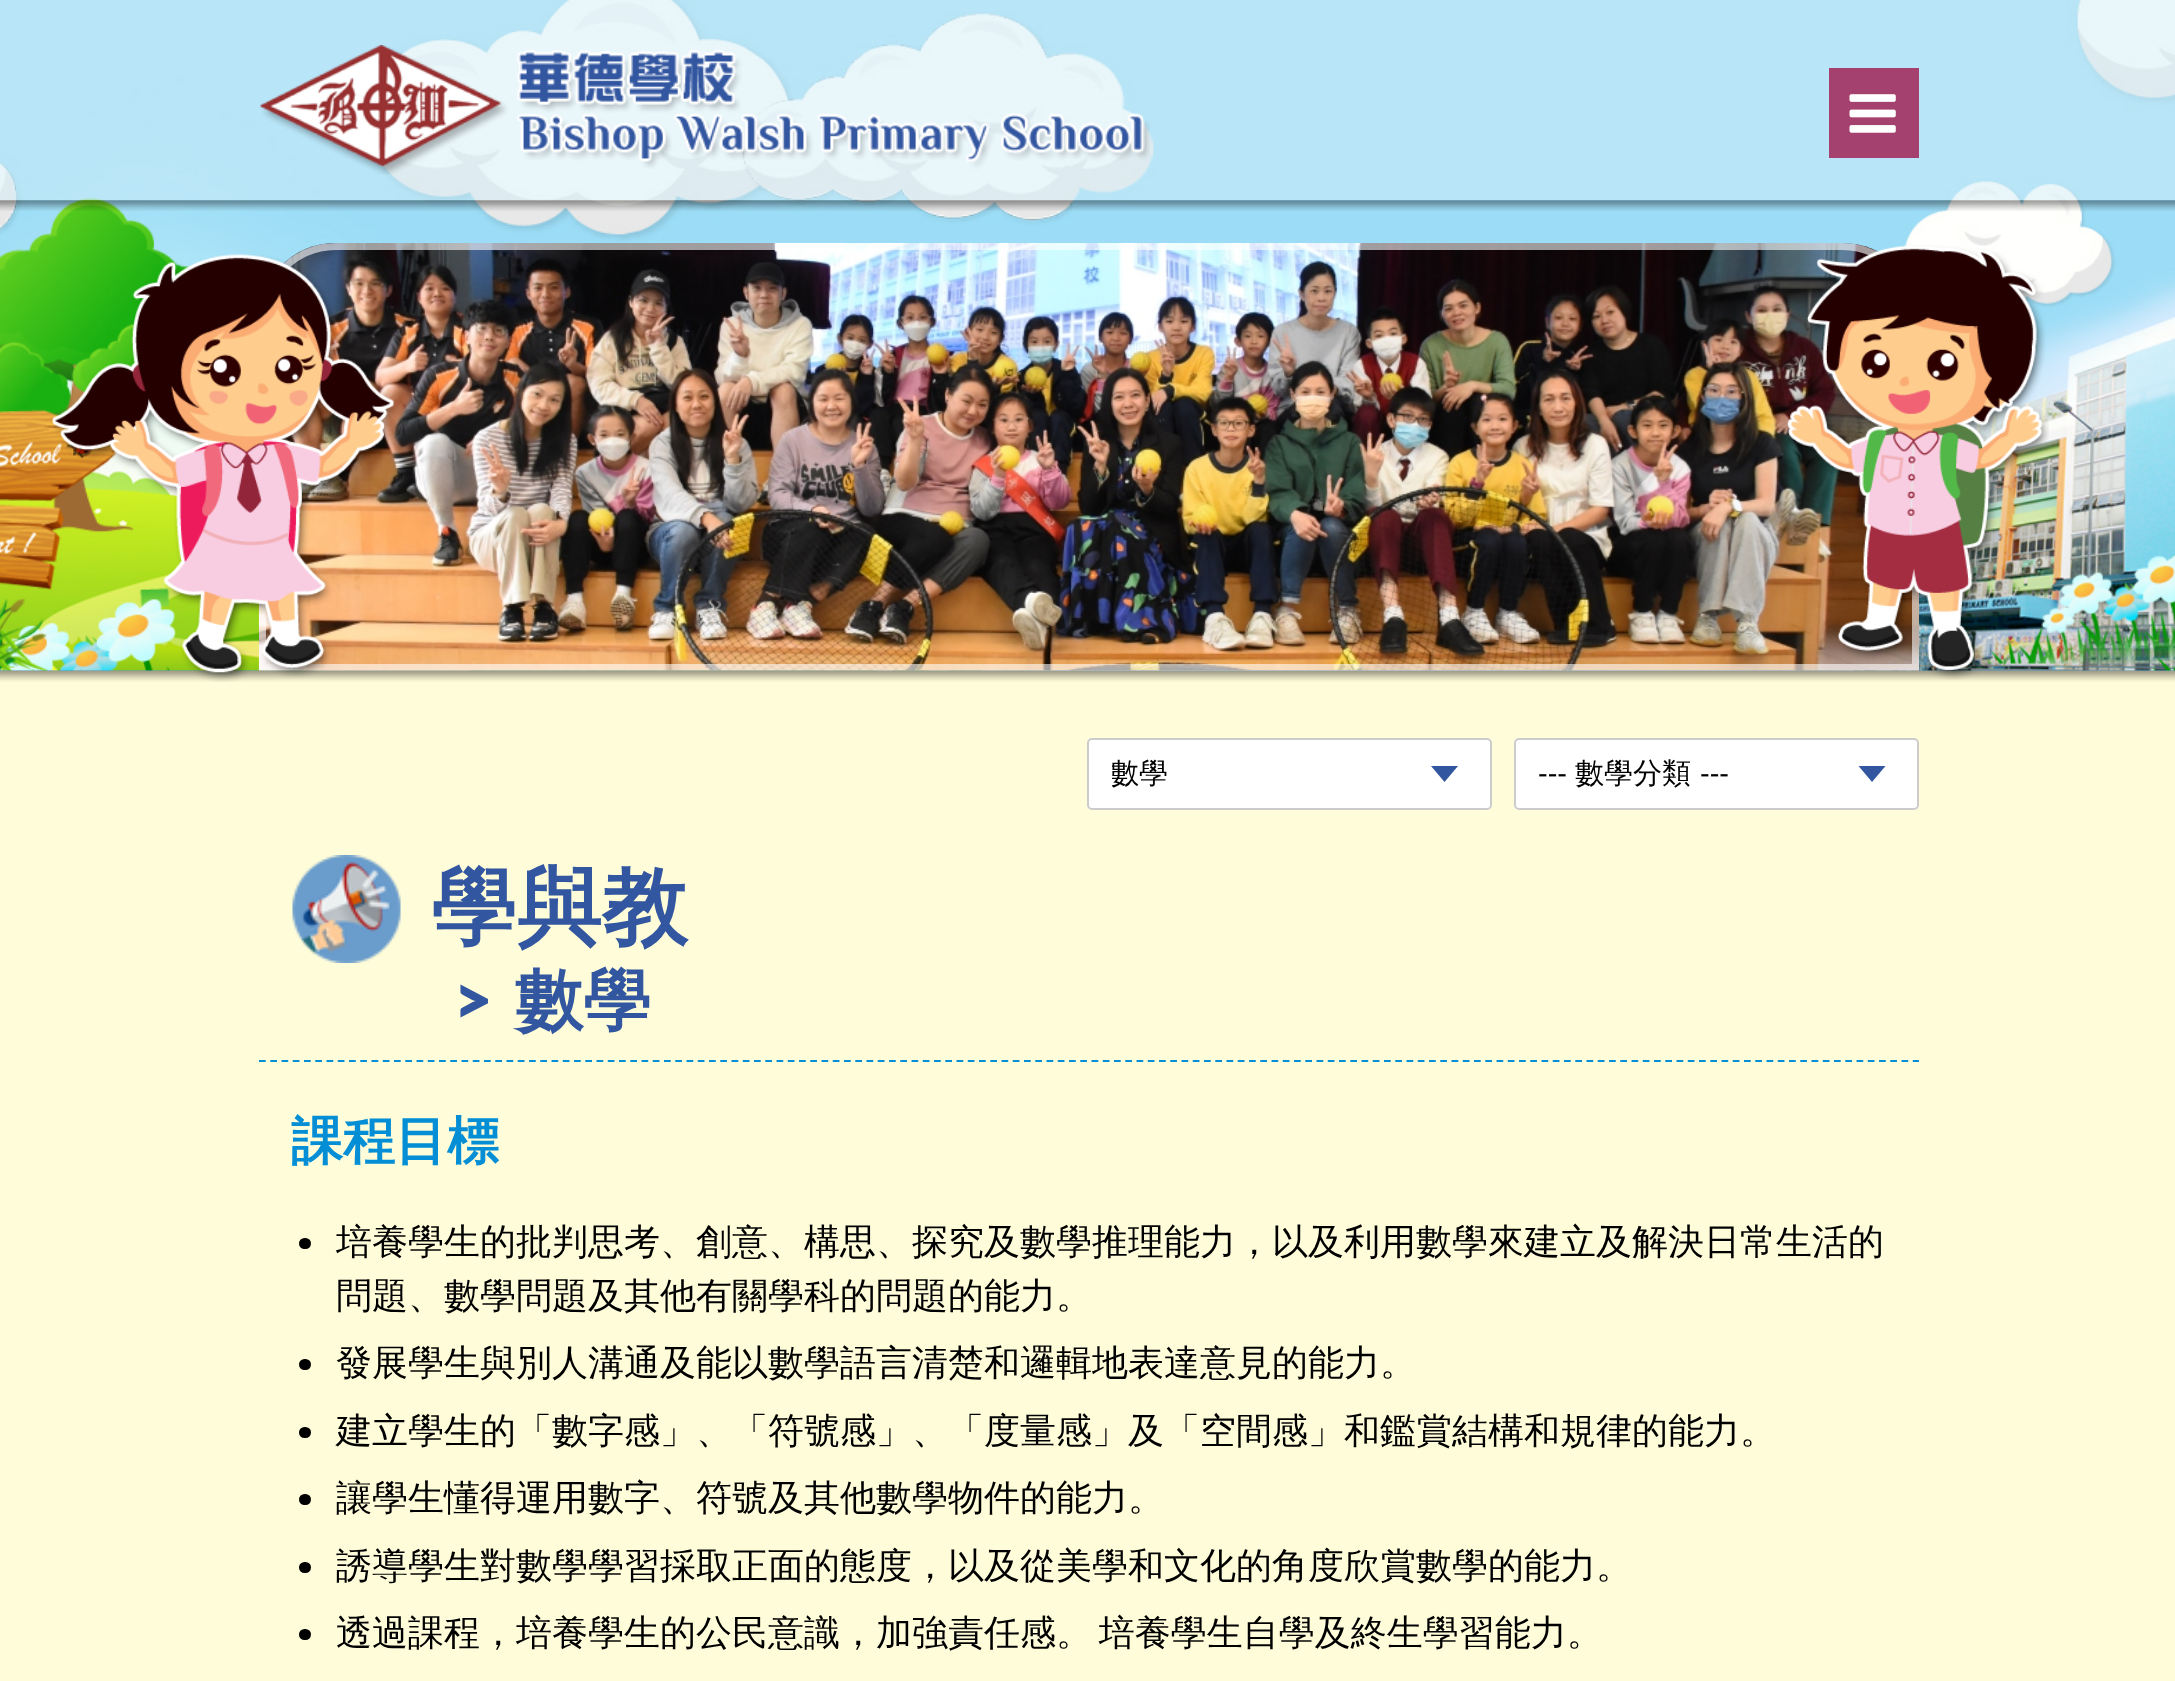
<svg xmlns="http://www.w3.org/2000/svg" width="2175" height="1681">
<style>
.a{font:500 29px WenQuanYi Zen Hei;fill:#000}
.b{font:29px Liberation Sans;fill:#000}
.c{font:bold 85.5px WenQuanYi Zen Hei;fill:#3256a0}
.d{font:900 68px Lato;fill:#3256a0}
.e{font:bold 68px WenQuanYi Zen Hei;fill:#3256a0}
.f{font:bold 52px WenQuanYi Zen Hei;fill:#048ed6}
.g{font:500 36px WenQuanYi Zen Hei;fill:#000}
</style>
<defs>
<clipPath id="clip1"><path d="M1112 756h288v34H1112z"/></clipPath>
</defs>
<rect width="100%" height="100%" fill="#9cddf6"/>
<image href="1.png" x="0" y="0" width="2175" height="671"/>
<path fill="#d4edf880" d="M0 0h2175v200H0z"/>
<image href="2.png" x="260" y="45" width="890" height="130"/>
<path fill="#a5416e" d="M1829 68h90v90H1829z"/>
<image href="3.png" x="1849" y="94" width="47" height="39"/>
<image href="4.png" x="0" y="200" width="2175" height="11"/>
<image href="5.png" x="258" y="243" width="1662" height="428"/>
<path fill="none" stroke="#ffffff99" stroke-width="7" d="M336 246.5h1506c40.5 0 73.5 33 73.5 73.5v347.5h-1653v-347.5c0-40.5 33-73.5 73.5-73.5z"/>
<path fill="#fffcd9" d="M0 671h2175v1010H0z"/>
<image href="8.png" x="0" y="670" width="2175" height="12"/>
<image href="6.png" x="51" y="254" width="348" height="428"/>
<image href="7.png" x="1787" y="245" width="262" height="435"/>
<rect fill="#fff" x="1087" y="738" width="405" height="72" rx="5"/>
<path fill="#3256a0" d="M1431 766h27l-13.5 16z"/>
<rect fill="none" stroke="#ccc" stroke-width="2" x="1088" y="739" width="403" height="70" rx="4"/>
<rect fill="#fff" x="1514" y="738" width="405" height="72" rx="5"/>
<path fill="#3256a0" d="M1858.5 766h27l-13.5 16z"/>
<rect fill="none" stroke="#ccc" stroke-width="2" x="1515" y="739" width="403" height="70" rx="4"/>
<path fill="none" stroke="#048ed6" stroke-width="2.2" stroke-dasharray="6.75 4.5" d="M259 1061h1660"/>
<image href="9.png" x="292" y="855" width="109" height="108"/>
<rect fill="#000" x="299" y="1238" width="12" height="11" rx="5.5"/>
<rect fill="#000" x="299" y="1359" width="12" height="11" rx="5.5"/>
<rect fill="#000" x="299" y="1427" width="12" height="11" rx="5.5"/>
<rect fill="#000" x="299" y="1494" width="12" height="11" rx="5.5"/>
<rect fill="#000" x="299" y="1562" width="12" height="11" rx="5.5"/>
<rect fill="#000" x="299" y="1629" width="12" height="11" rx="5.5"/>
<g clip-path="url(#clip1)">
<text class="a" x="1110" y="783">數學</text>
</g>
<text class="b" x="1538" y="783">---</text>
<text class="a" x="1575" y="783">數學分類</text>
<text class="b" x="1700" y="783">---</text>
<text class="c" x="431" y="937">學與教</text>
<text class="d" x="453" y="1024">&gt;</text>
<text class="e" x="515" y="1024">數學</text>
<text class="f" x="291" y="1159">課程目標</text>
<text class="g" x="336" y="1254">培養學生的批判思考、創意、構思、探究及數學推理能力，以及利用數學來建立及解決日常生活的</text>
<text class="g" x="336" y="1308">問題、數學問題及其他有關學科的問題的能力。</text>
<text class="g" x="336" y="1375">發展學生與別人溝通及能以數學語言清楚和邏輯地表達意見的能力。</text>
<text class="g" x="336" y="1443">建立學生的「數字感」、「符號感」、「度量感」及「空間感」和鑑賞結構和規律的能力。</text>
<text class="g" x="336" y="1510">讓學生懂得運用數字、符號及其他數學物件的能力。</text>
<text class="g" x="336" y="1578">誘導學生對數學學習採取正面的態度，以及從美學和文化的角度欣賞數學的能力。</text>
<text class="g" x="336" y="1645" word-spacing="-4">透過課程，培養學生的公民意識，加強責任感。 培養學生自學及終生學習能力。</text>
</svg>
